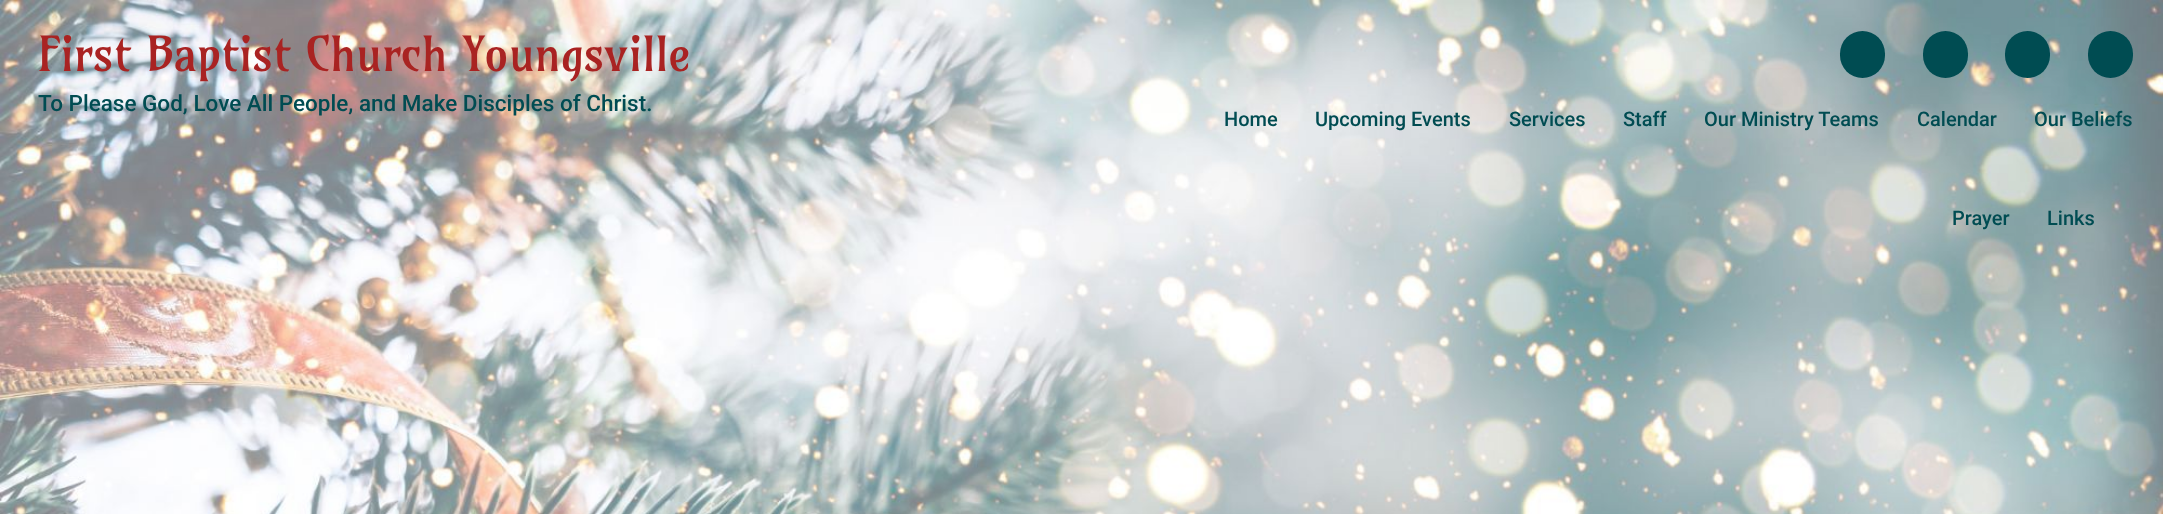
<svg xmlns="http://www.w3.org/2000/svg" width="2163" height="514">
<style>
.a{font:47.5px Amarante;fill:#a92322}
.b{font:500 22.5px Roboto;fill:#004c52}
.c{font:500 20px Roboto;fill:#004c52}
</style>
<rect width="100%" height="100%" fill="#fff"/>
<image href="1.png" x="0" y="0" width="2163" height="514"/>
<rect fill="#004c52" x="1840" y="31" width="45" height="47" rx="22.5"/>
<rect fill="#004c52" x="1923" y="31" width="45" height="47" rx="22.5"/>
<rect fill="#004c52" x="2005" y="31" width="45" height="47" rx="22.5"/>
<rect fill="#004c52" x="2088" y="31" width="45" height="47" rx="22.5"/>
<text class="a" x="38" y="71">First Baptist Church Youngsville</text>
<text class="b" x="38" y="111">To Please God, Love All People, and Make Disciples of Christ.</text>
<text class="c" x="1224" y="126">Home</text>
<text class="c" x="1315" y="126">Upcoming Events</text>
<text class="c" x="1509" y="126">Services</text>
<text class="c" x="1623" y="126">Staff</text>
<text class="c" x="1704" y="126">Our Ministry Teams</text>
<text class="c" x="1917" y="126">Calendar</text>
<text class="c" x="2034" y="126">Our Beliefs</text>
<text class="c" x="1952" y="225">Prayer</text>
<text class="c" x="2047" y="225">Links</text>
</svg>
